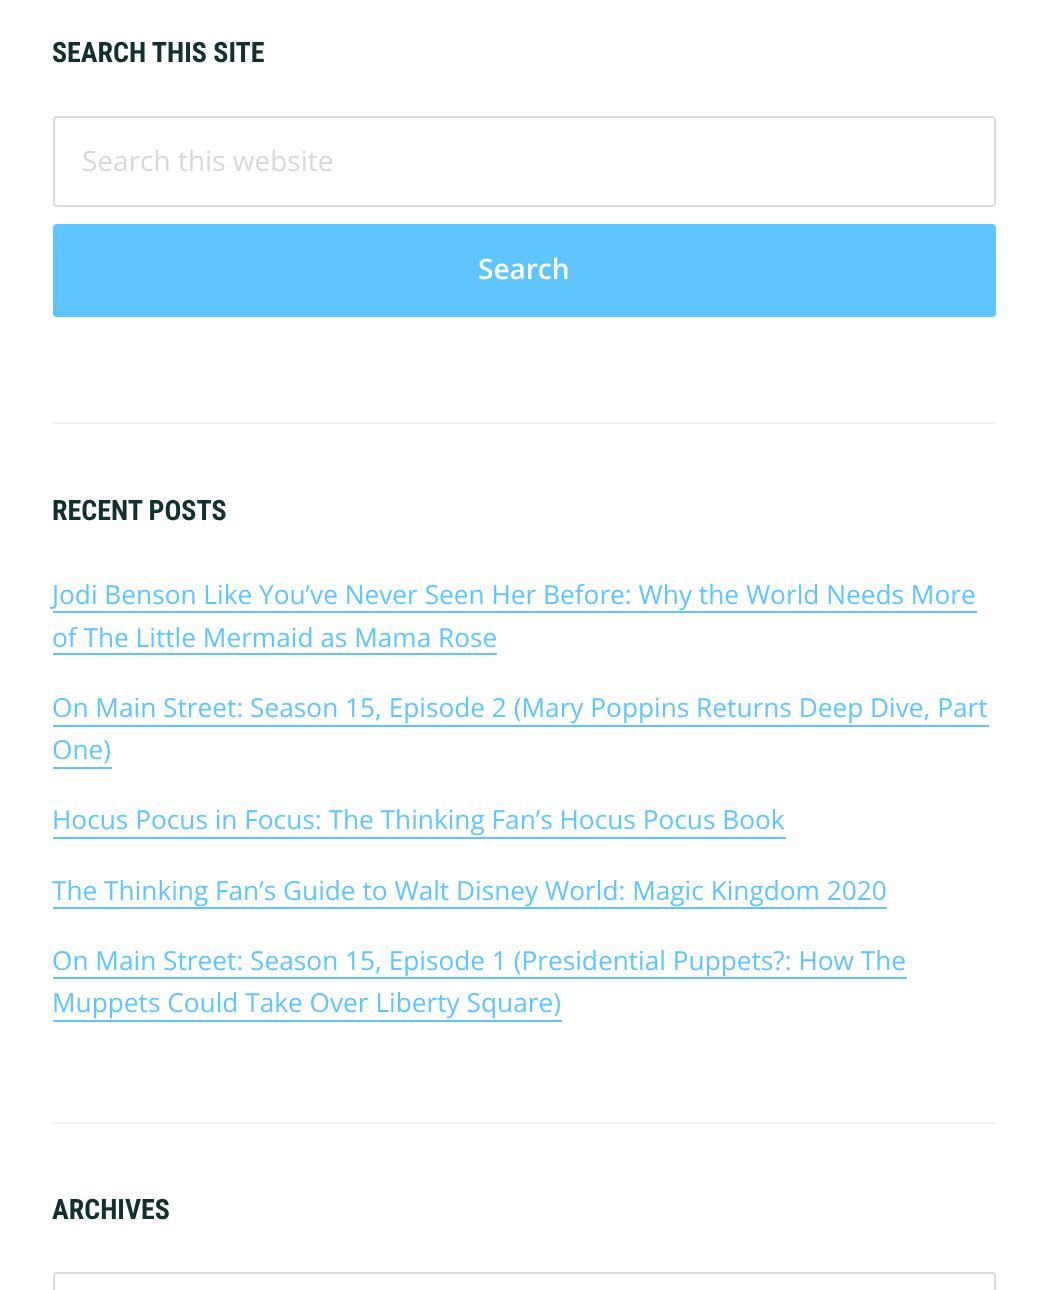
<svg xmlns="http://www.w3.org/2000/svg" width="1048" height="1290">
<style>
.a{font:bold 28px Roboto Condensed;fill:#12302e}
.b{font:28px Open Sans;fill:#d8d8d8}
.c{font:600 28px Open Sans;fill:#fff}
.d{font:26.25px Open Sans;fill:#60c5ff}
</style>
<rect width="100%" height="100%" fill="#fff"/>
<path fill="#f2f2f2" d="M53 422h943v2H53z"/>
<rect fill="none" stroke="#dcdcdc" stroke-width="2" x="54" y="117" width="941" height="89" rx="3"/>
<rect fill="#60c5ff" x="53" y="224" width="943" height="93" rx="4"/>
<path fill="#f2f2f2" d="M53 1122h943v2H53z"/>
<path fill="#60c5ff" d="M53 611h924v2H53z"/>
<path fill="#60c5ff" d="M53 653h444v2H53z"/>
<path fill="#60c5ff" d="M53 725h936v2H53z"/>
<path fill="#60c5ff" d="M53 767h59v2H53z"/>
<path fill="#60c5ff" d="M53 837h733v2H53z"/>
<path fill="#60c5ff" d="M53 907h834v2H53z"/>
<path fill="#60c5ff" d="M53 977h854v2H53z"/>
<path fill="#60c5ff" d="M53 1020h509v2H53z"/>
<rect fill="none" stroke="#dcdcdc" stroke-width="2" x="54" y="1273" width="941" height="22" rx="3"/>
<text class="a" x="52" y="62">SEARCH THIS SITE</text>
<text class="b" x="82" y="171">Search this website</text>
<text class="c" x="478" y="279">Search</text>
<text class="a" x="52" y="520">RECENT POSTS</text>
<text class="d" x="52" y="604">Jodi Benson Like You’ve Never Seen Her Before: Why the World Needs More</text>
<text class="d" x="52" y="647">of The Little Mermaid as Mama Rose</text>
<text class="d" x="52" y="717">On Main Street: Season 15, Episode 2 (Mary Poppins Returns Deep Dive, Part</text>
<text class="d" x="52" y="759">One)</text>
<text class="d" x="52" y="829">Hocus Pocus in Focus: The Thinking Fan’s Hocus Pocus Book</text>
<text class="d" x="52" y="900">The Thinking Fan’s Guide to Walt Disney World: Magic Kingdom 2020</text>
<text class="d" x="52" y="970">On Main Street: Season 15, Episode 1 (Presidential Puppets?: How The</text>
<text class="d" x="52" y="1012">Muppets Could Take Over Liberty Square)</text>
<text class="a" x="52" y="1219">ARCHIVES</text>
</svg>
